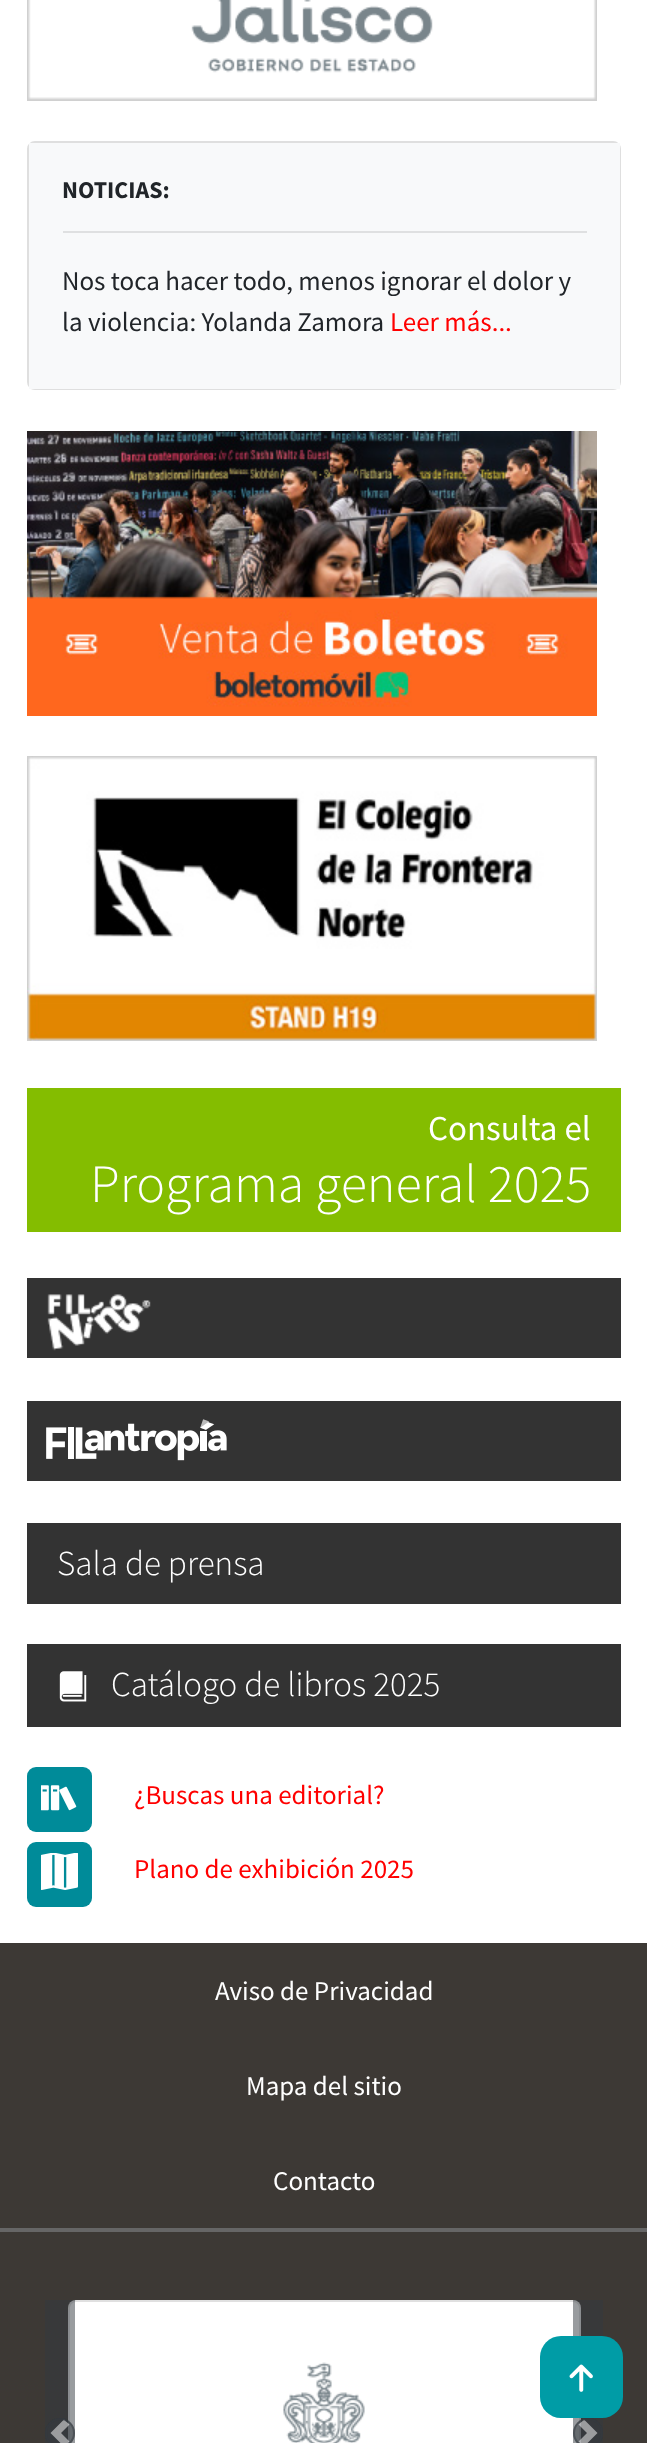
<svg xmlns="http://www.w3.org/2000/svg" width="647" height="2443">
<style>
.a{font:bold 24px Source Sans Pro;fill:#212529}
.b{font:27px Source Sans Pro;fill:#212529}
.c{font:27px Source Sans Pro;fill:#f00}
.d{font:35px Source Sans Pro;fill:#fff}
.e{font:300 54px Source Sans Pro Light;fill:#fff}
.f{font:300 35px Source Sans Pro Light;fill:#fff}
.g{font:27px Source Sans Pro;fill:#fff}
</style>
<rect width="100%" height="100%" fill="#fff"/>
<image href="1.png" x="27" y="0" width="570" height="101"/>
<rect fill="none" stroke="#dfdfdf" stroke-width="2" x="28" y="142" width="592" height="247" rx="7"/>
<path fill="#f8f9fa" d="M29 143h591v246H29z"/>
<path fill="#dfe0e1" d="M63 231h524v2H63z"/>
<image href="2.png" x="27" y="431" width="570" height="285"/>
<image href="3.png" x="27" y="756" width="570" height="285"/>
<path fill="#84bd00" d="M27 1088h594v144H27z"/>
<path fill="#333" d="M27 1278h594v80H27z"/>
<image href="4.png" x="47" y="1294" width="104" height="57"/>
<path fill="#333" d="M27 1401h594v80H27z"/>
<image href="5.png" x="46" y="1419" width="181" height="42"/>
<path fill="#333" d="M27 1523h594v81H27z"/>
<path fill="#333" d="M27 1644h594v83H27z"/>
<image href="6.png" x="59" y="1671" width="28" height="31"/>
<rect fill="#008b99" x="27" y="1767" width="65" height="65" rx="9"/>
<image href="7.png" x="41" y="1785" width="36" height="26"/>
<rect fill="#008b99" x="27" y="1842" width="65" height="65" rx="9"/>
<image href="8.png" x="41" y="1853" width="37" height="37"/>
<path fill="#3d3935" d="M0 1943h647v285H0z"/>
<path fill="#666" d="M0 2228h647v4H0z"/>
<path fill="#3d3935" d="M0 2232h647v211H0z"/>
<rect fill="#fff" x="68" y="2300" width="513" height="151" rx="8"/>
<rect fill="none" stroke="#0000001f" stroke-width="2" x="69" y="2301" width="511" height="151" rx="7"/>
<path fill="#343a4080" d="M45 2300h30v143H45z"/>
<circle fill="#343a4080" cx="60" cy="2433" r="15"/>
<path fill="#ffffff80" d="M64 2419.5l-13.5 13.5l13.5 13.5l5.5-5l-8.5-8.5l8.5-8.5z"/>
<circle fill="none" stroke="#343a4080" stroke-width="2" cx="60" cy="2433" r="14"/>
<image href="9.png" x="283" y="2362" width="82" height="81"/>
<path fill="#343a4080" d="M573 2300h30v143H573z"/>
<circle fill="#343a4080" cx="588" cy="2433" r="15"/>
<path fill="#ffffff80" d="M584 2419.5l-5.5 5l8.5 8.5l-8.5 8.5l5.5 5l13.5-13.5z"/>
<circle fill="none" stroke="#343a4080" stroke-width="2" cx="588" cy="2433" r="14"/>
<rect fill="#009ca6" x="540" y="2336" width="83" height="82" rx="21"/>
<image href="10.png" x="569" y="2364" width="24" height="28"/>
<text class="a" x="62" y="198">NOTICIAS:</text>
<text class="b" x="62" y="290">Nos toca hacer todo, menos ignorar el dolor y</text>
<text class="b" x="62" y="331">la violencia: Yolanda Zamora</text>
<text class="c" x="390" y="331">Leer más...</text>
<text class="d" x="428" y="1140">Consulta el</text>
<text class="e" x="90" y="1202">Programa general 2025</text>
<text class="f" x="57" y="1575">Sala de prensa</text>
<text class="f" x="111" y="1696">Catálogo de libros 2025</text>
<text class="c" x="134" y="1804">¿Buscas una editorial?</text>
<text class="c" x="134" y="1878">Plano de exhibición 2025</text>
<text class="g" x="215" y="2000">Aviso de Privacidad</text>
<text class="g" x="246" y="2095">Mapa del sitio</text>
<text class="g" x="273" y="2190">Contacto</text>
</svg>
